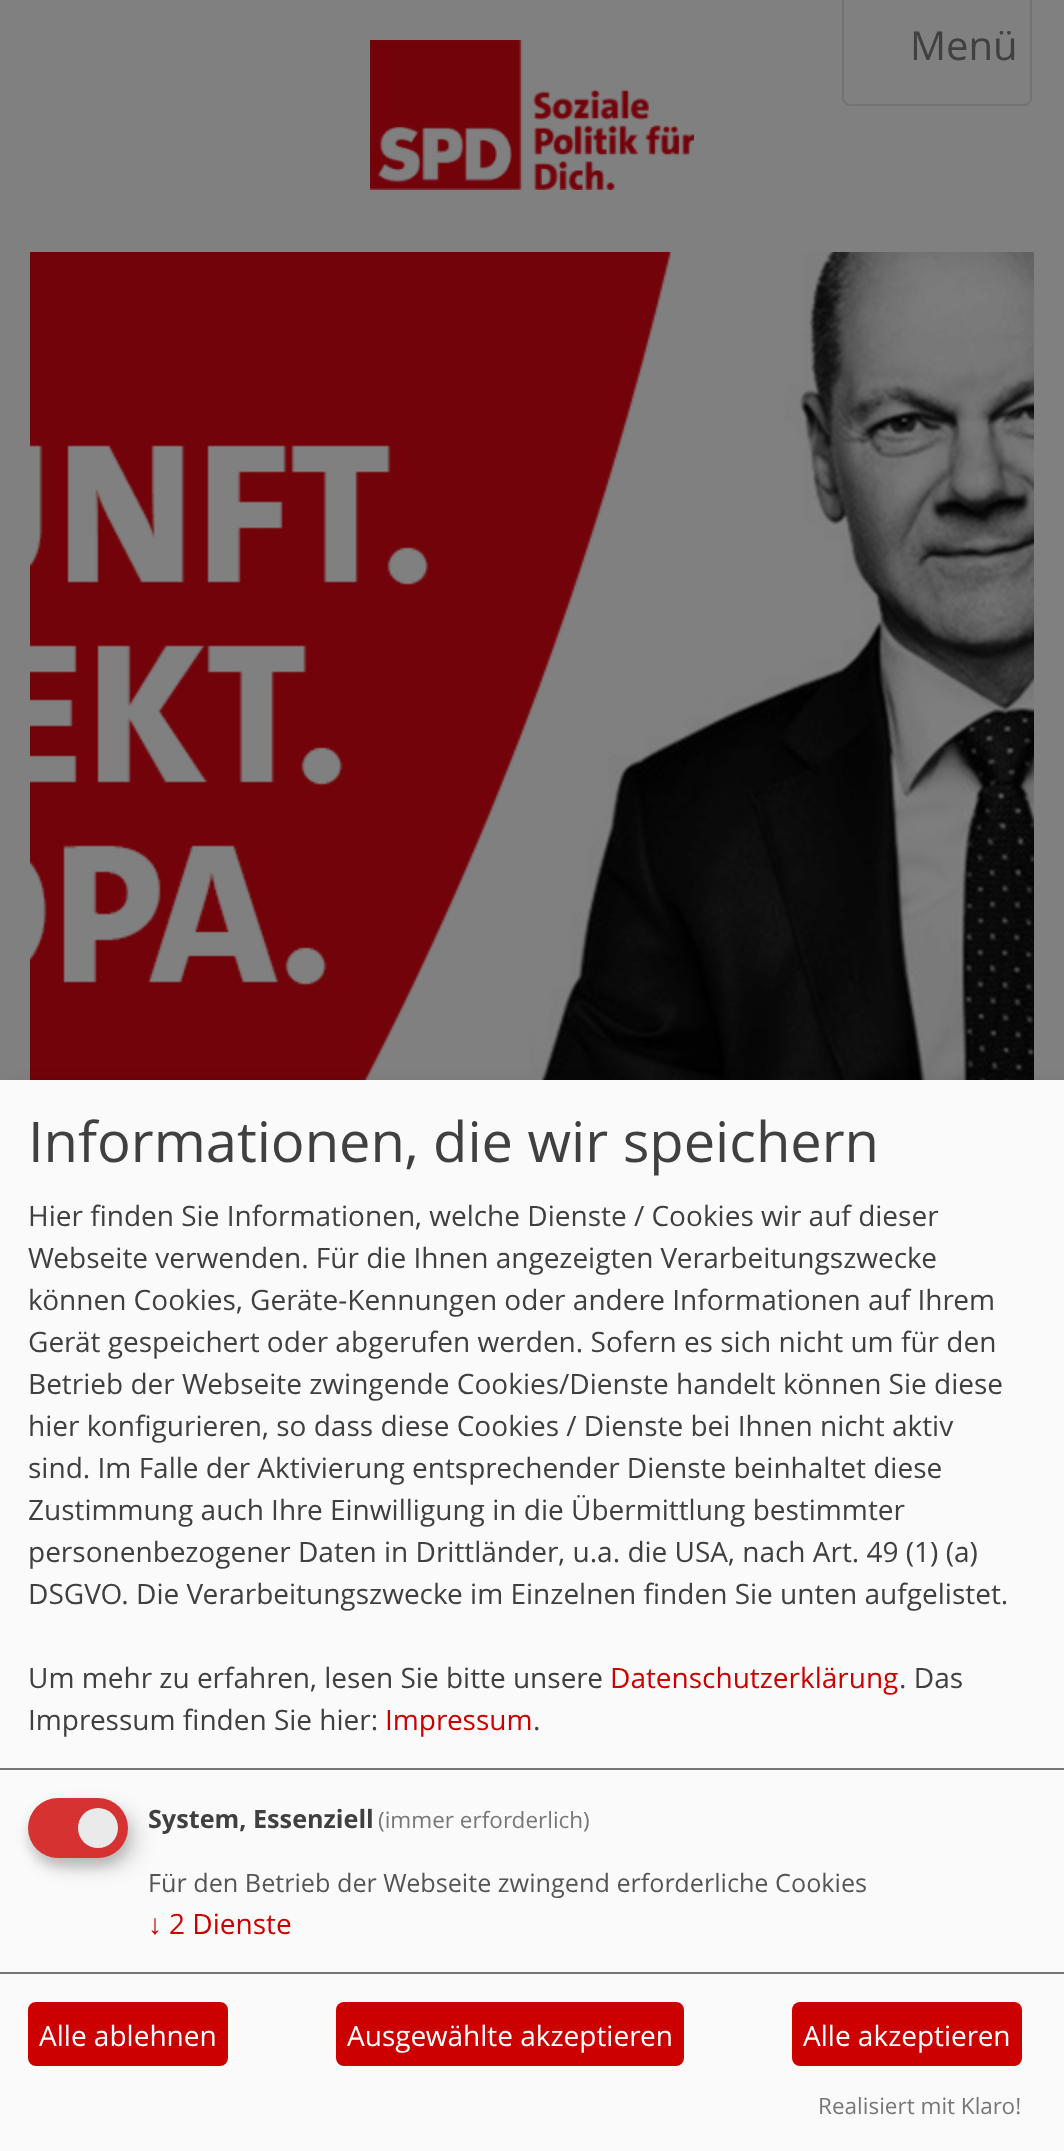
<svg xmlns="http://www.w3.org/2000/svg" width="1064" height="2151">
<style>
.a{font:40px Open Sans;fill:#404040}
.b{font:56px Open Sans;fill:#404040}
.c{font:28px Open Sans;fill:#404040}
.d{font:28px Open Sans;fill:#cd0000}
.e{font:bold 25.2px Open Sans;fill:#404040}
.f{font:22.5px Open Sans;fill:#777}
.g{font:25.2px Open Sans;fill:#555}
.h{font:28px Liberation Sans;fill:#cd0000}
.i{font:28px Open Sans;fill:#fff}
</style>
<rect width="100%" height="100%" fill="#808080"/>
<image href="1.png" x="370" y="40" width="324" height="150"/>
<rect fill="none" stroke="#737373" stroke-width="2" x="843" y="-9" width="188" height="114" rx="7"/>
<image href="2.png" x="30" y="252" width="1004" height="828"/>
<path fill="#00000030" filter="blur(10px)" d="M10 1090h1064v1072H10z"/>
<path fill="#fafafa" d="M0 1080h1064v1071H0z"/>
<path fill="#777" d="M0 1768h1064v2H0z"/>
<rect fill="#00000026" filter="blur(10px)" x="38" y="1808" width="100" height="60" rx="30"/>
<rect fill="#32323233" filter="blur(6px)" x="28" y="1806" width="100" height="60" rx="30"/>
<rect fill="#d63232" x="28" y="1798" width="100" height="60" rx="30"/>
<circle fill="#eaeaea" cx="98" cy="1828" r="20"/>
<path fill="#777" d="M0 1972h1064v2H0z"/>
<rect fill="#cd0000" x="28" y="2002" width="200" height="64" rx="8"/>
<rect fill="#cd0000" x="336" y="2002" width="348" height="64" rx="8"/>
<rect fill="#cd0000" x="792" y="2002" width="230" height="64" rx="8"/>
<text class="a" x="910" y="60">Menü</text>
<text class="b" x="28" y="1162">Informationen, die wir speichern</text>
<text class="c" x="28" y="1226">Hier finden Sie Informationen, welche Dienste / Cookies wir auf dieser</text>
<text class="c" x="28" y="1268">Webseite verwenden. Für die Ihnen angezeigten Verarbeitungszwecke</text>
<text class="c" x="28" y="1310">können Cookies, Geräte-Kennungen oder andere Informationen auf Ihrem</text>
<text class="c" x="28" y="1352">Gerät gespeichert oder abgerufen werden. Sofern es sich nicht um für den</text>
<text class="c" x="28" y="1394">Betrieb der Webseite zwingende Cookies/Dienste handelt können Sie diese</text>
<text class="c" x="28" y="1436">hier konfigurieren, so dass diese Cookies / Dienste bei Ihnen nicht aktiv</text>
<text class="c" x="28" y="1478">sind. Im Falle der Aktivierung entsprechender Dienste beinhaltet diese</text>
<text class="c" x="28" y="1520">Zustimmung auch Ihre Einwilligung in die Übermittlung bestimmter</text>
<text class="c" x="28" y="1562">personenbezogener Daten in Drittländer, u.a. die USA, nach Art. 49 (1) (a)</text>
<text class="c" x="28" y="1604">DSGVO. Die Verarbeitungszwecke im Einzelnen finden Sie unten aufgelistet.</text>
<text class="c" x="28" y="1688">Um mehr zu erfahren, lesen Sie bitte unsere</text>
<text class="d" x="610" y="1688">Datenschutzerklärung</text>
<text class="c" x="899" y="1688">. Das</text>
<text class="c" x="28" y="1730">Impressum finden Sie hier:</text>
<text class="d" x="385" y="1730">Impressum</text>
<text class="c" x="533" y="1730">.</text>
<text class="e" x="148" y="1828">System, Essenziell</text>
<text class="f" x="378" y="1828">(immer erforderlich)</text>
<text class="g" x="148" y="1892">Für den Betrieb der Webseite zwingend erforderliche Cookies</text>
<text class="h" x="148" y="1934">↓</text>
<text class="d" x="169" y="1934">2 Dienste</text>
<text class="i" x="39" y="2046">Alle ablehnen</text>
<text class="i" x="347" y="2046">Ausgewählte akzeptieren</text>
<text class="i" x="803" y="2046">Alle akzeptieren</text>
<text class="f" x="818" y="2114">Realisiert mit Klaro!</text>
</svg>
